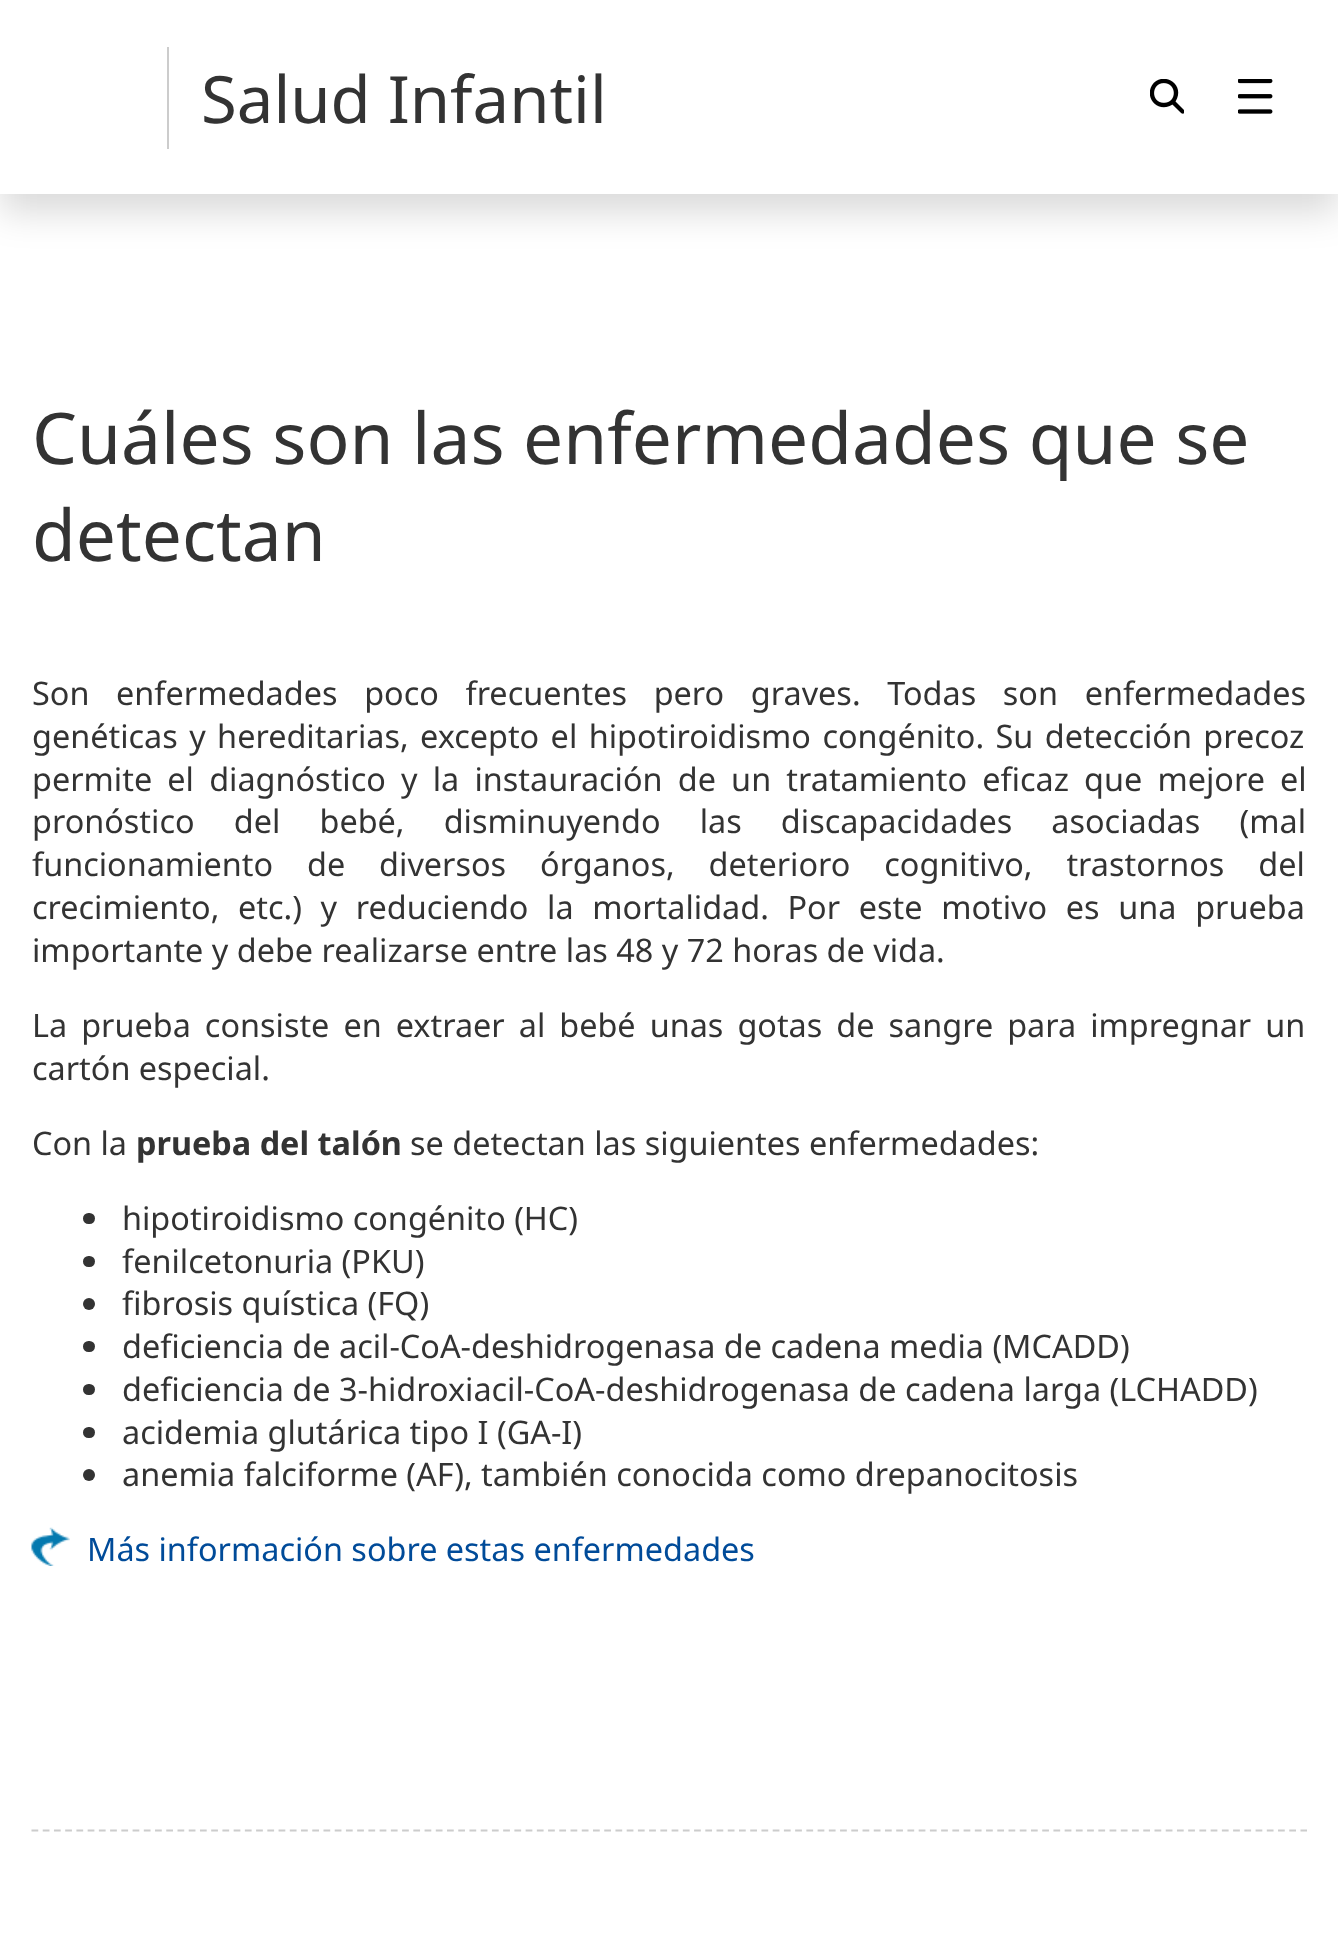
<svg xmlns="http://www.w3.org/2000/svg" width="1338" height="1957">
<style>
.a{font:65.25px Noto Sans;fill:#333}
.b{font:71.25px Noto Sans;fill:#333}
.c{font:32.4px Noto Sans;fill:#333}
.d{font:bold 32.4px Noto Sans;fill:#333}
.e{font:32.4px Noto Sans;fill:#004b99}
</style>
<rect width="100%" height="100%" fill="#fff"/>
<path fill="#00000026" filter="blur(18px)" d="M0 18h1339v194H0z"/>
<path fill="#fff" d="M0 0h1338v194H0z"/>
<path fill="#ccc" d="M167 47h2v102H167z"/>
<image href="1.png" x="1150" y="79" width="34" height="35"/>
<image href="2.png" x="1238" y="79" width="35" height="35"/>
<rect fill="#333" x="83" y="1213" width="12" height="11" rx="5.5"/>
<rect fill="#333" x="83" y="1256" width="12" height="11" rx="5.5"/>
<circle fill="#333" cx="89" cy="1304" r="6"/>
<rect fill="#333" x="83" y="1341" width="12" height="11" rx="5.5"/>
<rect fill="#333" x="83" y="1384" width="12" height="11" rx="5.5"/>
<rect fill="#333" x="83" y="1427" width="12" height="11" rx="5.5"/>
<circle fill="#333" cx="89" cy="1475" r="6"/>
<image href="3.png" x="31" y="1527" width="39" height="39"/>
<path fill="none" stroke="#ccc" stroke-width="2.2" stroke-dasharray="6.75 4.48" d="M31.5 1830.5h1275.5"/>
<text class="a" x="201" y="123">Salud Infantil</text>
<text class="b" x="32" y="464">Cuáles son las enfermedades que se</text>
<text class="b" x="32" y="561">detectan</text>
<text class="c" x="32" y="705" word-spacing="18.25">Son enfermedades poco frecuentes pero graves. Todas son enfermedades</text>
<text class="c" x="32" y="748" word-spacing="3">genéticas y hereditarias, excepto el hipotiroidismo congénito. Su detección precoz</text>
<text class="c" x="32" y="791" word-spacing="6.75">permite el diagnóstico y la instauración de un tratamiento eficaz que mejore el</text>
<text class="c" x="32" y="833" word-spacing="30.75">pronóstico del bebé, disminuyendo las discapacidades asociadas (mal</text>
<text class="c" x="32" y="876" word-spacing="25.5">funcionamiento de diversos órganos, deterioro cognitivo, trastornos del</text>
<text class="c" x="32" y="919" word-spacing="10.25">crecimiento, etc.) y reduciendo la mortalidad. Por este motivo es una prueba</text>
<text class="c" x="32" y="962">importante y debe realizarse entre las 48 y 72 horas de vida.</text>
<text class="c" x="32" y="1037" word-spacing="5.6">La prueba consiste en extraer al bebé unas gotas de sangre para impregnar un</text>
<text class="c" x="32" y="1080">cartón especial.</text>
<text class="c" x="32" y="1155">Con la</text>
<text class="d" x="136" y="1155">prueba del talón</text>
<text class="c" x="410" y="1155">se detectan las siguientes enfermedades:</text>
<text class="c" x="122" y="1230">hipotiroidismo congénito (HC)</text>
<text class="c" x="122" y="1273">fenilcetonuria (PKU)</text>
<text class="c" x="122" y="1315">fibrosis quística (FQ)</text>
<text class="c" x="122" y="1358">deficiencia de acil-CoA-deshidrogenasa de cadena media (MCADD)</text>
<text class="c" x="122" y="1401">deficiencia de 3-hidroxiacil-CoA-deshidrogenasa de cadena larga (LCHADD)</text>
<text class="c" x="122" y="1444">acidemia glutárica tipo I (GA-I)</text>
<text class="c" x="122" y="1486">anemia falciforme (AF), también conocida como drepanocitosis</text>
<text class="e" x="87" y="1561">Más información sobre estas enfermedades</text>
</svg>
